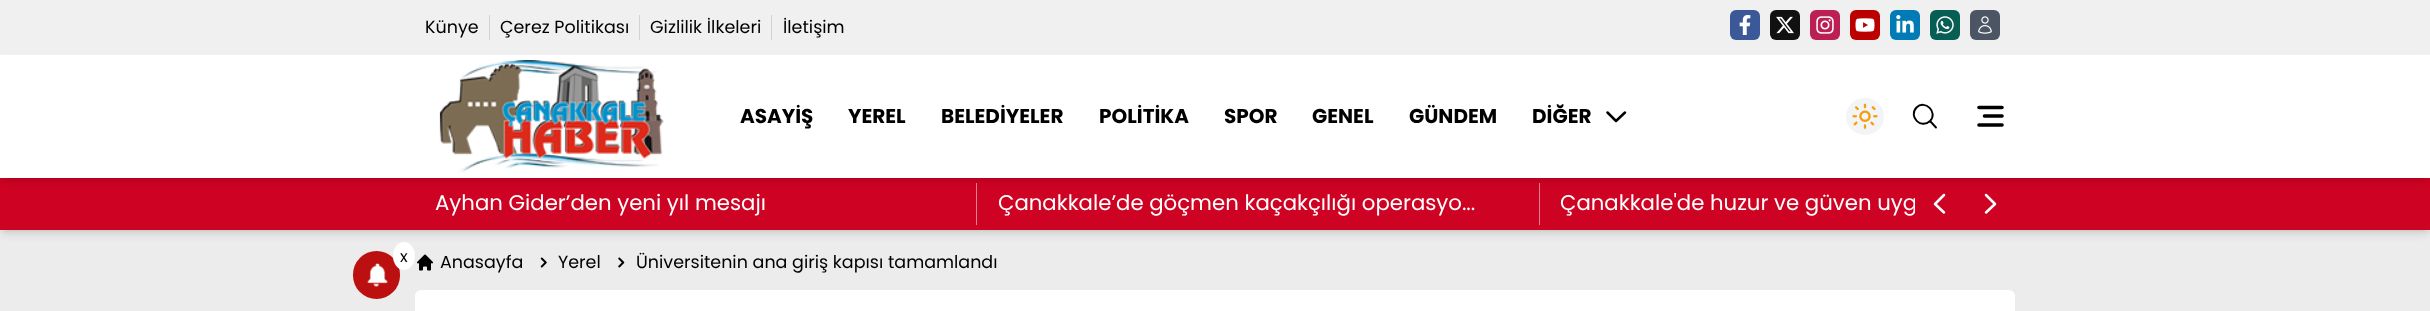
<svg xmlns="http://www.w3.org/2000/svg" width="2430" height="311">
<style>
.a{font:17.5px Poppins;fill:#000}
.b{font:bold 20px Poppins;fill:#000}
.c{font:21.25px Poppins;fill:#fff}
.d{font:16px Poppins;fill:#000}
</style>
<defs>
<clipPath id="clip1"><path d="M1540 183h375v42H1540z"/></clipPath>
</defs>
<rect width="100%" height="100%" fill="#ececec"/>
<path fill="#f0f0f0" d="M0 0h2430v54H0z"/>
<path fill="#f3f4f6" d="M0 54h2430v1H0z"/>
<path fill="#d3d3d3" d="M489 15h1v25H489z"/>
<path fill="#d3d3d3" d="M639 15h1v25H639z"/>
<path fill="#d3d3d3" d="M771 15h1v25H771z"/>
<rect fill="#3b5998" x="1730" y="10" width="30" height="30" rx="6"/>
<image href="1.png" x="1739" y="15" width="12" height="20"/>
<rect fill="#111" x="1770" y="10" width="30" height="30" rx="6"/>
<image href="2.png" x="1776" y="16" width="18" height="18"/>
<rect fill="#bb1f54" x="1810" y="10" width="30" height="30" rx="6"/>
<image href="3.png" x="1816" y="16" width="18" height="18"/>
<rect fill="#b00" x="1850" y="10" width="30" height="30" rx="6"/>
<image href="4.png" x="1855" y="18" width="20" height="14"/>
<rect fill="#007bb5" x="1890" y="10" width="30" height="30" rx="6"/>
<image href="5.png" x="1896" y="15" width="18" height="18"/>
<rect fill="#075e54" x="1930" y="10" width="30" height="30" rx="6"/>
<image href="6.png" x="1936" y="16" width="18" height="18"/>
<rect fill="#4b5563" x="1970" y="10" width="30" height="30" rx="6"/>
<image href="7.png" x="1978" y="16" width="14" height="18"/>
<path fill="#0000001a" filter="blur(2.5px)" d="M3 183h2425v47H3z"/>
<path fill="#0000001a" filter="blur(4px)" d="M1 184h2428v50H1z"/>
<path fill="#ce0323" d="M0 178h2430v52H0z"/>
<path fill="#e78191" d="M976 183h1v42H976z"/>
<path fill="#e78191" d="M1539 183h1v42H1539z"/>
<path fill="#0000001a" filter="blur(2.5px)" d="M3 60h2425v118H3z"/>
<path fill="none" stroke="#fff" stroke-width="2.5" stroke-linecap="round" stroke-linejoin="round" d="M1944 212.5l-9-8.5l9-9"/>
<path fill="none" stroke="#fff" stroke-width="2.5" stroke-linecap="round" stroke-linejoin="round" d="M1986 195l9 9l-9 8.5"/>
<path fill="#0000001a" filter="blur(4px)" d="M1 61h2428v120H1z"/>
<path fill="#fff" d="M0 55h2430v123H0z"/>
<image href="8.png" x="439" y="60" width="225" height="113"/>
<path fill="none" stroke="#000" stroke-width="2.5" stroke-linecap="round" stroke-linejoin="round" d="M1625 112.5l-9 8.5l-8.5-8.5"/>
<rect fill="#f3f4f6" x="1846" y="98" width="38" height="37" rx="18.5"/>
<image href="9.png" x="1852" y="103" width="26" height="26"/>
<path fill="none" stroke="#000" stroke-width="1.9" stroke-linecap="round" stroke-linejoin="round" d="M1936 127.5l-6-6.5m0 0c8.5-8.5-5-22-13.5-13.5c-8.5 9 4.5 22 13.5 13.5z"/>
<path fill="none" stroke="#000" stroke-width="3.6" stroke-linecap="round" stroke-linejoin="round" d="M2002 107.5h-23m23 8.5h-17.5m17.5 9h-23"/>
<rect fill="#bc0f0f" x="353" y="251" width="47" height="48" rx="23.5"/>
<ellipse fill="#fff" cx="404" cy="256" rx="11" ry="14"/>
<image href="10.png" x="367" y="263" width="21" height="24"/>
<image href="11.png" x="417" y="254" width="16" height="17"/>
<image href="12.png" x="540" y="257" width="7" height="11"/>
<image href="13.png" x="618" y="257" width="7" height="11"/>
<rect fill="#fff" x="415" y="290" width="1600" height="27" rx="6"/>
<text class="a" x="425" y="33">Künye</text>
<text class="a" x="500" y="33">Çerez Politikası</text>
<text class="a" x="650" y="33">Gizlilik İlkeleri</text>
<text class="a" x="783" y="33">İletişim</text>
<text class="b" x="740" y="123">ASAYİŞ</text>
<text class="b" x="848" y="123">YEREL</text>
<text class="b" x="941" y="123">BELEDİYELER</text>
<text class="b" x="1099" y="123">POLİTİKA</text>
<text class="b" x="1224" y="123">SPOR</text>
<text class="b" x="1312" y="123">GENEL</text>
<text class="b" x="1409" y="123">GÜNDEM</text>
<text class="b" x="1532" y="123">DİĞER</text>
<text class="c" x="435" y="210">Ayhan Gider’den yeni yıl mesajı</text>
<text class="c" x="998" y="210">Çanakkale’de göçmen kaçakçılığı operasyo...</text>
<g clip-path="url(#clip1)">
<text class="c" x="1560" y="210">Çanakkale'de huzur ve güven uyg</text>
</g>
<text class="d" x="400" y="262">x</text>
<text class="a" x="440" y="268">Anasayfa</text>
<text class="a" x="558" y="268">Yerel</text>
<text class="a" x="636" y="268">Üniversitenin ana giriş kapısı tamamlandı</text>
</svg>
